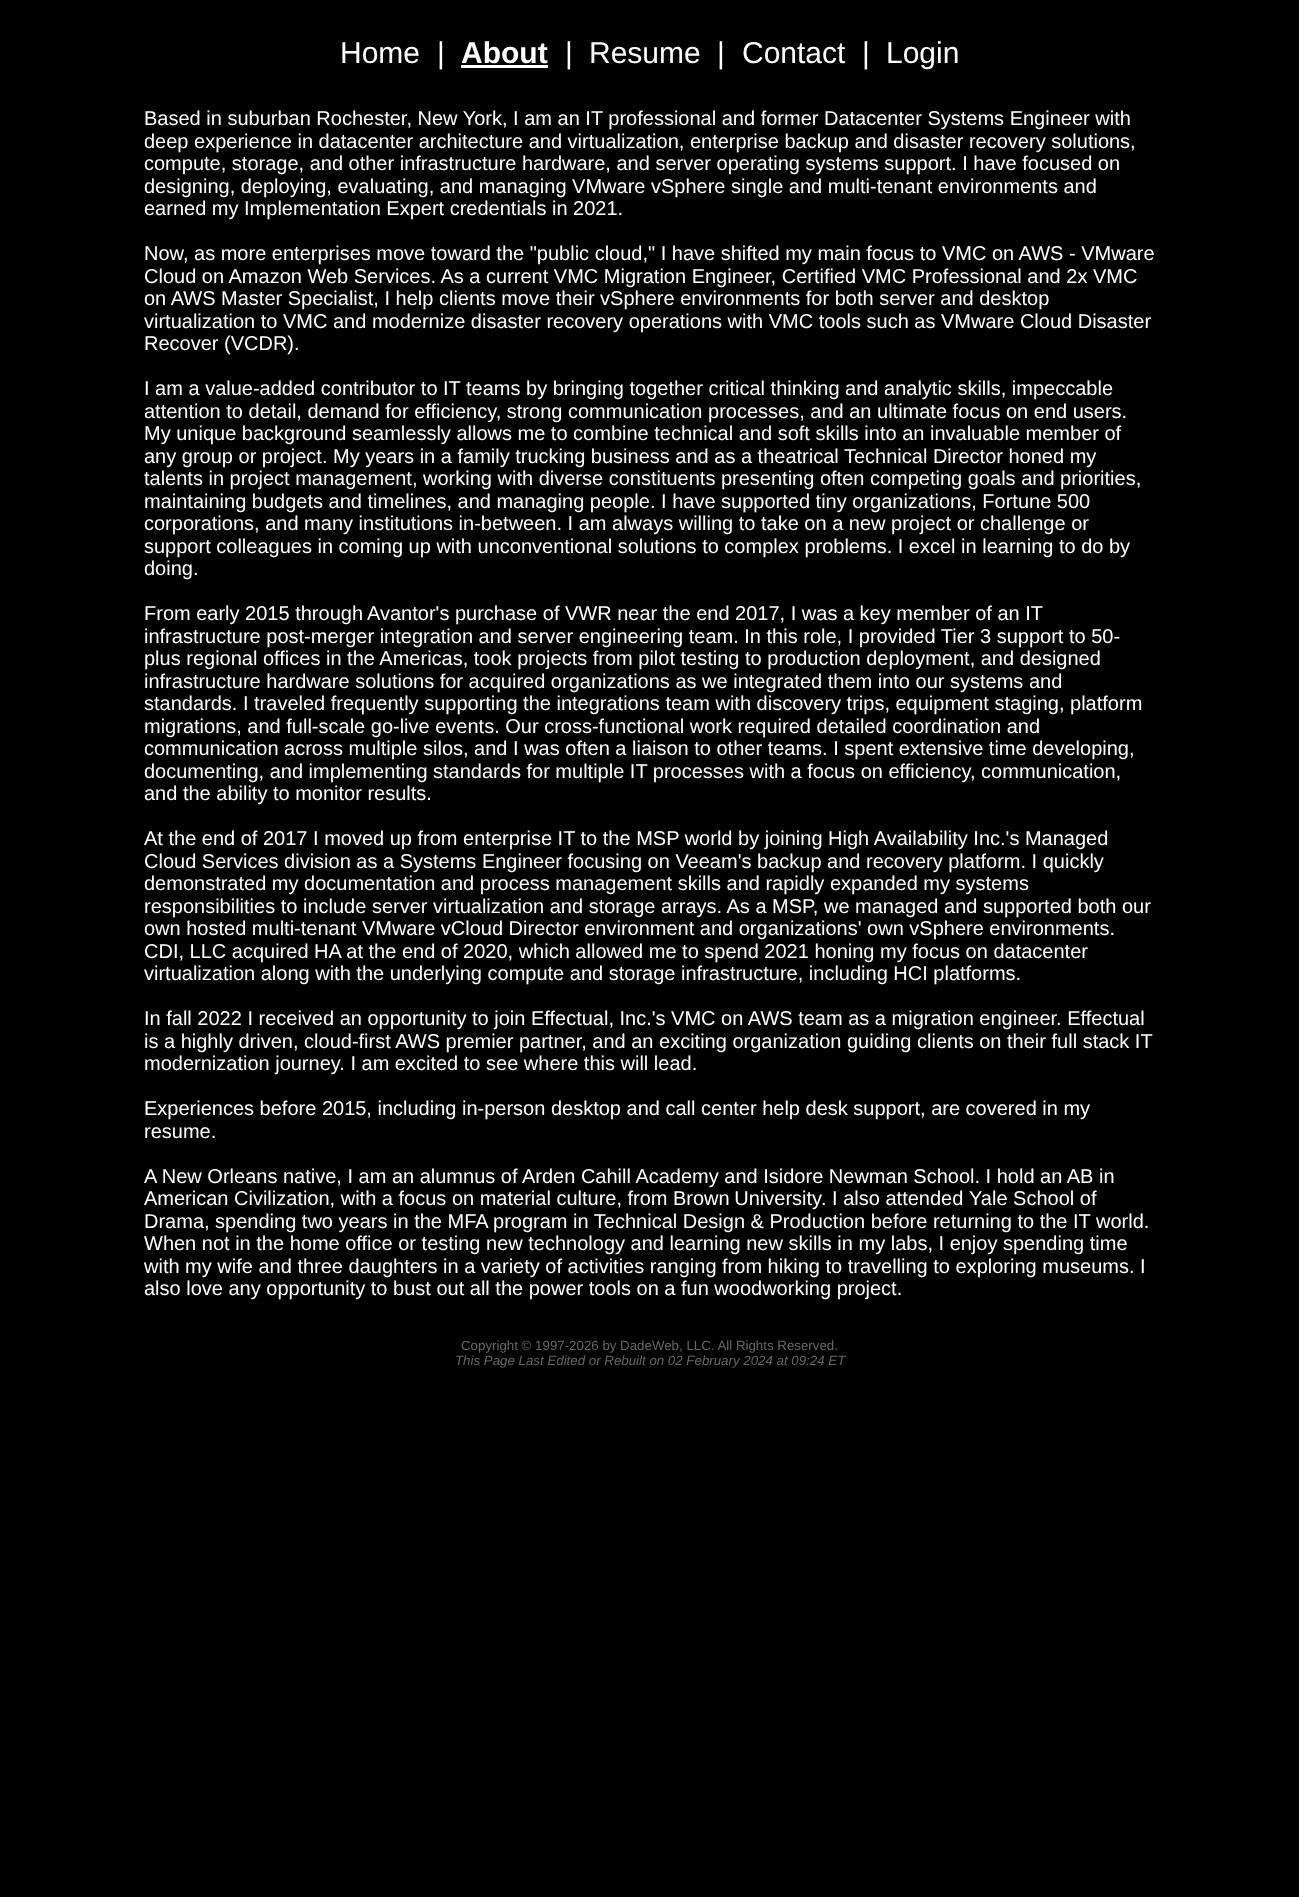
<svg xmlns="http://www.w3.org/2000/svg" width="1299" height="1897">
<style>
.a{font:30px Liberation Sans;fill:#fff}
.b{font:bold 30px Liberation Sans;fill:#fff}
.c{font:20px Liberation Sans;fill:#fff}
.d{font:13.3px Liberation Sans;fill:#666}
.e{font:italic 13.3px Liberation Sans;fill:#666}
</style>
<rect width="100%" height="100%" fill="#000"/>
<path fill="#fff" d="M461 65h87v3H461z"/>
<text class="a" x="340" y="63">Home</text>
<text class="a" x="437" y="63">|</text>
<text class="b" x="461" y="63">About</text>
<text class="a" x="565" y="63">|</text>
<text class="a" x="589" y="63">Resume</text>
<text class="a" x="717" y="63">|</text>
<text class="a" x="742" y="63">Contact</text>
<text class="a" x="862" y="63">|</text>
<text class="a" x="886" y="63">Login</text>
<text class="c" x="144" y="125">Based in suburban Rochester, New York, I am an IT professional and former Datacenter Systems Engineer with</text>
<text class="c" x="144" y="148">deep experience in datacenter architecture and virtualization, enterprise backup and disaster recovery solutions,</text>
<text class="c" x="144" y="170">compute, storage, and other infrastructure hardware, and server operating systems support. I have focused on</text>
<text class="c" x="144" y="193">designing, deploying, evaluating, and managing VMware vSphere single and multi-tenant environments and</text>
<text class="c" x="144" y="215">earned my Implementation Expert credentials in 2021.</text>
<text class="c" x="144" y="260">Now, as more enterprises move toward the "public cloud," I have shifted my main focus to VMC on AWS - VMware</text>
<text class="c" x="144" y="283">Cloud on Amazon Web Services. As a current VMC Migration Engineer, Certified VMC Professional and 2x VMC</text>
<text class="c" x="144" y="305">on AWS Master Specialist, I help clients move their vSphere environments for both server and desktop</text>
<text class="c" x="144" y="328">virtualization to VMC and modernize disaster recovery operations with VMC tools such as VMware Cloud Disaster</text>
<text class="c" x="144" y="350">Recover (VCDR).</text>
<text class="c" x="144" y="395">I am a value-added contributor to IT teams by bringing together critical thinking and analytic skills, impeccable</text>
<text class="c" x="144" y="418">attention to detail, demand for efficiency, strong communication processes, and an ultimate focus on end users.</text>
<text class="c" x="144" y="440">My unique background seamlessly allows me to combine technical and soft skills into an invaluable member of</text>
<text class="c" x="144" y="463">any group or project. My years in a family trucking business and as a theatrical Technical Director honed my</text>
<text class="c" x="144" y="485">talents in project management, working with diverse constituents presenting often competing goals and priorities,</text>
<text class="c" x="144" y="508">maintaining budgets and timelines, and managing people. I have supported tiny organizations, Fortune 500</text>
<text class="c" x="144" y="530">corporations, and many institutions in-between. I am always willing to take on a new project or challenge or</text>
<text class="c" x="144" y="553">support colleagues in coming up with unconventional solutions to complex problems. I excel in learning to do by</text>
<text class="c" x="144" y="575">doing.</text>
<text class="c" x="144" y="620">From early 2015 through</text>
<text class="c" x="367" y="620">Avantor's purchase of VWR near the end 2017, I was a key member of an IT</text>
<text class="c" x="144" y="643">infrastructure post-merger integration and server engineering team. In this role, I provided Tier 3 support to 50-</text>
<text class="c" x="144" y="665">plus regional offices in the Americas, took projects from pilot testing to production deployment, and designed</text>
<text class="c" x="144" y="688">infrastructure hardware solutions for acquired organizations as we integrated them into our systems and</text>
<text class="c" x="144" y="710">standards. I traveled frequently supporting the integrations team with discovery trips, equipment staging, platform</text>
<text class="c" x="144" y="733">migrations, and full-scale go-live events. Our cross-functional work required detailed coordination and</text>
<text class="c" x="144" y="755">communication across multiple silos, and I was often a liaison to other teams. I spent extensive time developing,</text>
<text class="c" x="144" y="778">documenting, and implementing standards for multiple IT processes with a focus on efficiency, communication,</text>
<text class="c" x="144" y="800">and the ability to monitor results.</text>
<text class="c" x="144" y="845">At the end of 2017 I moved up from enterprise IT to the MSP world by joining High Availability Inc.'s Managed</text>
<text class="c" x="144" y="868">Cloud Services division as a Systems Engineer focusing on Veeam's backup and recovery platform. I quickly</text>
<text class="c" x="144" y="890">demonstrated my documentation and process management skills and rapidly expanded my systems</text>
<text class="c" x="144" y="913">responsibilities to include server virtualization and storage arrays. As a MSP, we managed and supported both our</text>
<text class="c" x="144" y="935">own hosted multi-tenant VMware vCloud Director environment and organizations' own vSphere environments.</text>
<text class="c" x="144" y="958">CDI, LLC acquired HA at the end of 2020, which allowed me to spend 2021 honing my focus on datacenter</text>
<text class="c" x="144" y="980">virtualization along with the underlying compute and storage infrastructure, including HCI platforms.</text>
<text class="c" x="144" y="1025">In fall 2022 I received an opportunity to join Effectual, Inc.'s VMC on AWS team as a migration engineer. Effectual</text>
<text class="c" x="144" y="1048">is a highly driven, cloud-first AWS premier partner, and an exciting organization guiding clients on their full stack IT</text>
<text class="c" x="144" y="1070">modernization journey. I am excited to see where this will lead.</text>
<text class="c" x="144" y="1115">Experiences before 2015, including in-person desktop and call center help desk support, are covered in my</text>
<text class="c" x="144" y="1138">resume.</text>
<text class="c" x="144" y="1183">A New Orleans native, I am an alumnus of</text>
<text class="c" x="522" y="1183">Arden Cahill Academy and Isidore Newman School. I hold an AB in</text>
<text class="c" x="144" y="1205">American Civilization, with a focus on material culture, from</text>
<text class="c" x="673" y="1205" word-spacing="-1">Brown University</text>
<text class="c" x="821" y="1205">. I also attended</text>
<text class="c" x="969" y="1205">Yale School of</text>
<text class="c" x="144" y="1228">Drama, spending two years in the MFA program in Technical Design &amp; Production before returning to the IT world.</text>
<text class="c" x="144" y="1250">When not in the home office or testing new technology and learning new skills in my labs, I enjoy spending time</text>
<text class="c" x="144" y="1273">with my wife and three daughters in a variety of activities ranging from hiking to travelling to exploring museums. I</text>
<text class="c" x="144" y="1295">also love any opportunity to bust out all the power tools on a fun woodworking project.</text>
<text class="d" x="461" y="1350">Copyright © 1997-2026 by DadeWeb, LLC. All Rights Reserved.</text>
<text class="e" x="455" y="1365">This Page Last Edited or Rebuilt on 02 February 2024 at 09:24 ET</text>
</svg>
